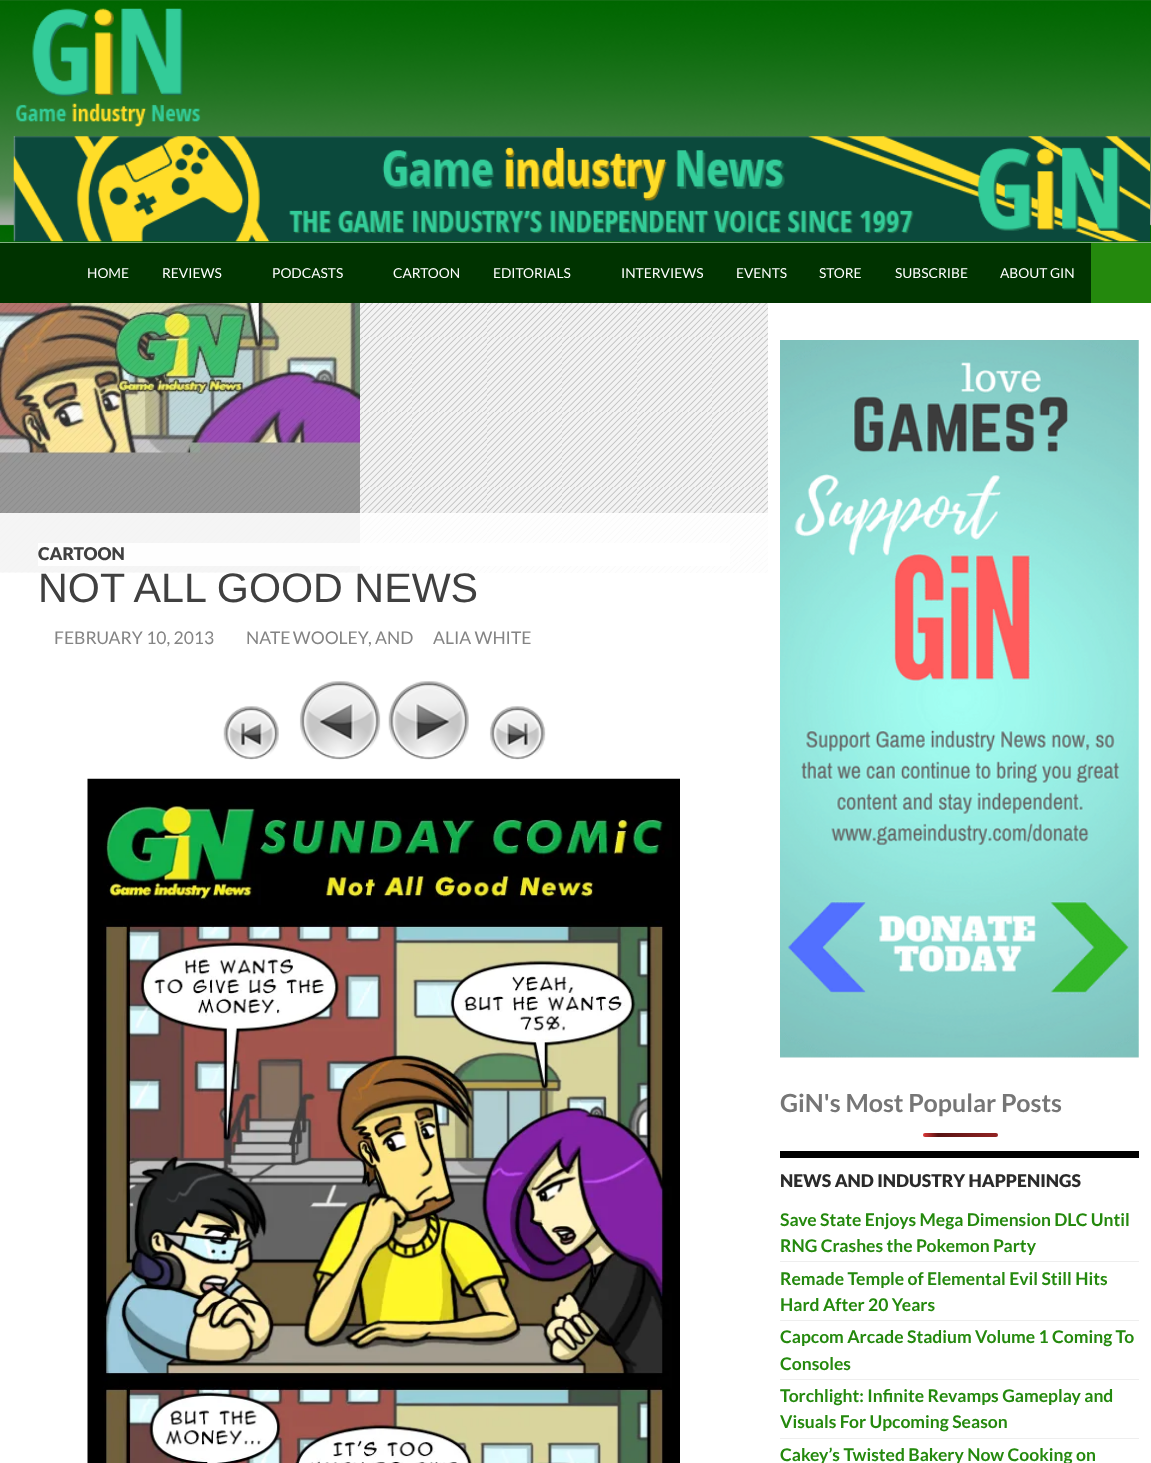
<svg xmlns="http://www.w3.org/2000/svg" width="1151" height="1463">
<style>
.a{font:13.75px Lato;fill:#fff}
.b{font:900 17.5px Lato;fill:#404040}
.c{font:41.25px Liberation Sans;fill:#404040}
.d{font:17.5px Lato;fill:#848484}
.e{font:bold 25px Lato;fill:#767676}
.f{font:900 17.5px Lato;fill:#2b2b2b}
.g{font:bold 17.5px Lato;fill:#24890d}
</style>
<defs>
<linearGradient id="g1" gradientUnits="userSpaceOnUse" x1="923" y1="1134" x2="1073" y2="1134"><stop offset="0" stop-color="#dd3737"/><stop offset="0.1" stop-color="#571313"/><stop offset="1" stop-color="#dd3737"/></linearGradient>
</defs>
<rect width="100%" height="100%" fill="#fff"/>
<image href="1.png" x="0" y="0" width="1151" height="243"/>
<image href="2.png" x="16" y="8" width="185" height="119"/>
<image href="3.png" x="13" y="136" width="1137" height="106"/>
<path fill="#030" d="M0 243h1091v60H0z"/>
<path fill="#24890d" d="M1091 243h60v60H1091z"/>
<path fill="#c2c2c2" d="M0 303h768v270H0z"/>
<image href="4.png" x="0" y="303" width="768" height="270"/>
<image href="5.png" x="0" y="303" width="360" height="270"/>
<path fill="#ffffffe6" d="M0 513h768v60H0z"/>
<path fill="#ffffffe6" d="M38 543h692v23H38z"/>
<image href="6.png" x="223" y="706" width="56" height="54"/>
<image href="7.png" x="299" y="681" width="82" height="79"/>
<image href="8.png" x="388" y="681" width="81" height="79"/>
<image href="9.png" x="489" y="706" width="57" height="54"/>
<image href="10.png" x="87" y="778" width="593" height="685"/>
<image href="11.png" x="780" y="340" width="359" height="718"/>
<rect fill="url(#g1)" x="923" y="1133" width="75" height="4" rx="2"/>
<path fill="#000" d="M780 1151h359v7H780z"/>
<path fill="#eee" d="M780 1261h359v1H780z"/>
<path fill="#eee" d="M780 1320h359v1H780z"/>
<path fill="#eee" d="M780 1379h359v1H780z"/>
<path fill="#eee" d="M780 1438h359v1H780z"/>
<text class="a" x="87" y="278">HOME</text>
<text class="a" x="162" y="278">REVIEWS</text>
<text class="a" x="272" y="278">PODCASTS</text>
<text class="a" x="393" y="278">CARTOON</text>
<text class="a" x="493" y="278">EDITORIALS</text>
<text class="a" x="621" y="278">INTERVIEWS</text>
<text class="a" x="736" y="278">EVENTS</text>
<text class="a" x="819" y="278">STORE</text>
<text class="a" x="895" y="278">SUBSCRIBE</text>
<text class="a" x="1000" y="278">ABOUT GIN</text>
<text class="b" x="38" y="560">CARTOON</text>
<text class="c" x="38" y="602">NOT ALL GOOD NEWS</text>
<text class="d" x="54" y="644">FEBRUARY 10, 2013</text>
<text class="d" x="246" y="644" word-spacing="-1">NATE WOOLEY</text>
<text class="d" x="368" y="644">, AND</text>
<text class="d" x="433" y="644">ALIA WHITE</text>
<text class="e" x="780" y="1112">GiN's Most Popular Posts</text>
<text class="f" x="780" y="1187">NEWS AND INDUSTRY HAPPENINGS</text>
<text class="g" x="780" y="1226">Save State Enjoys Mega Dimension DLC Until</text>
<text class="g" x="780" y="1252">RNG Crashes the Pokemon Party</text>
<text class="g" x="780" y="1285">Remade Temple of Elemental Evil Still Hits</text>
<text class="g" x="780" y="1311">Hard After 20 Years</text>
<text class="g" x="780" y="1343">Capcom Arcade Stadium Volume 1 Coming To</text>
<text class="g" x="780" y="1370">Consoles</text>
<text class="g" x="780" y="1402">Torchlight: Infinite Revamps Gameplay and</text>
<text class="g" x="780" y="1428">Visuals For Upcoming Season</text>
<text class="g" x="780" y="1461">Cakey’s Twisted Bakery Now Cooking on</text>
</svg>
